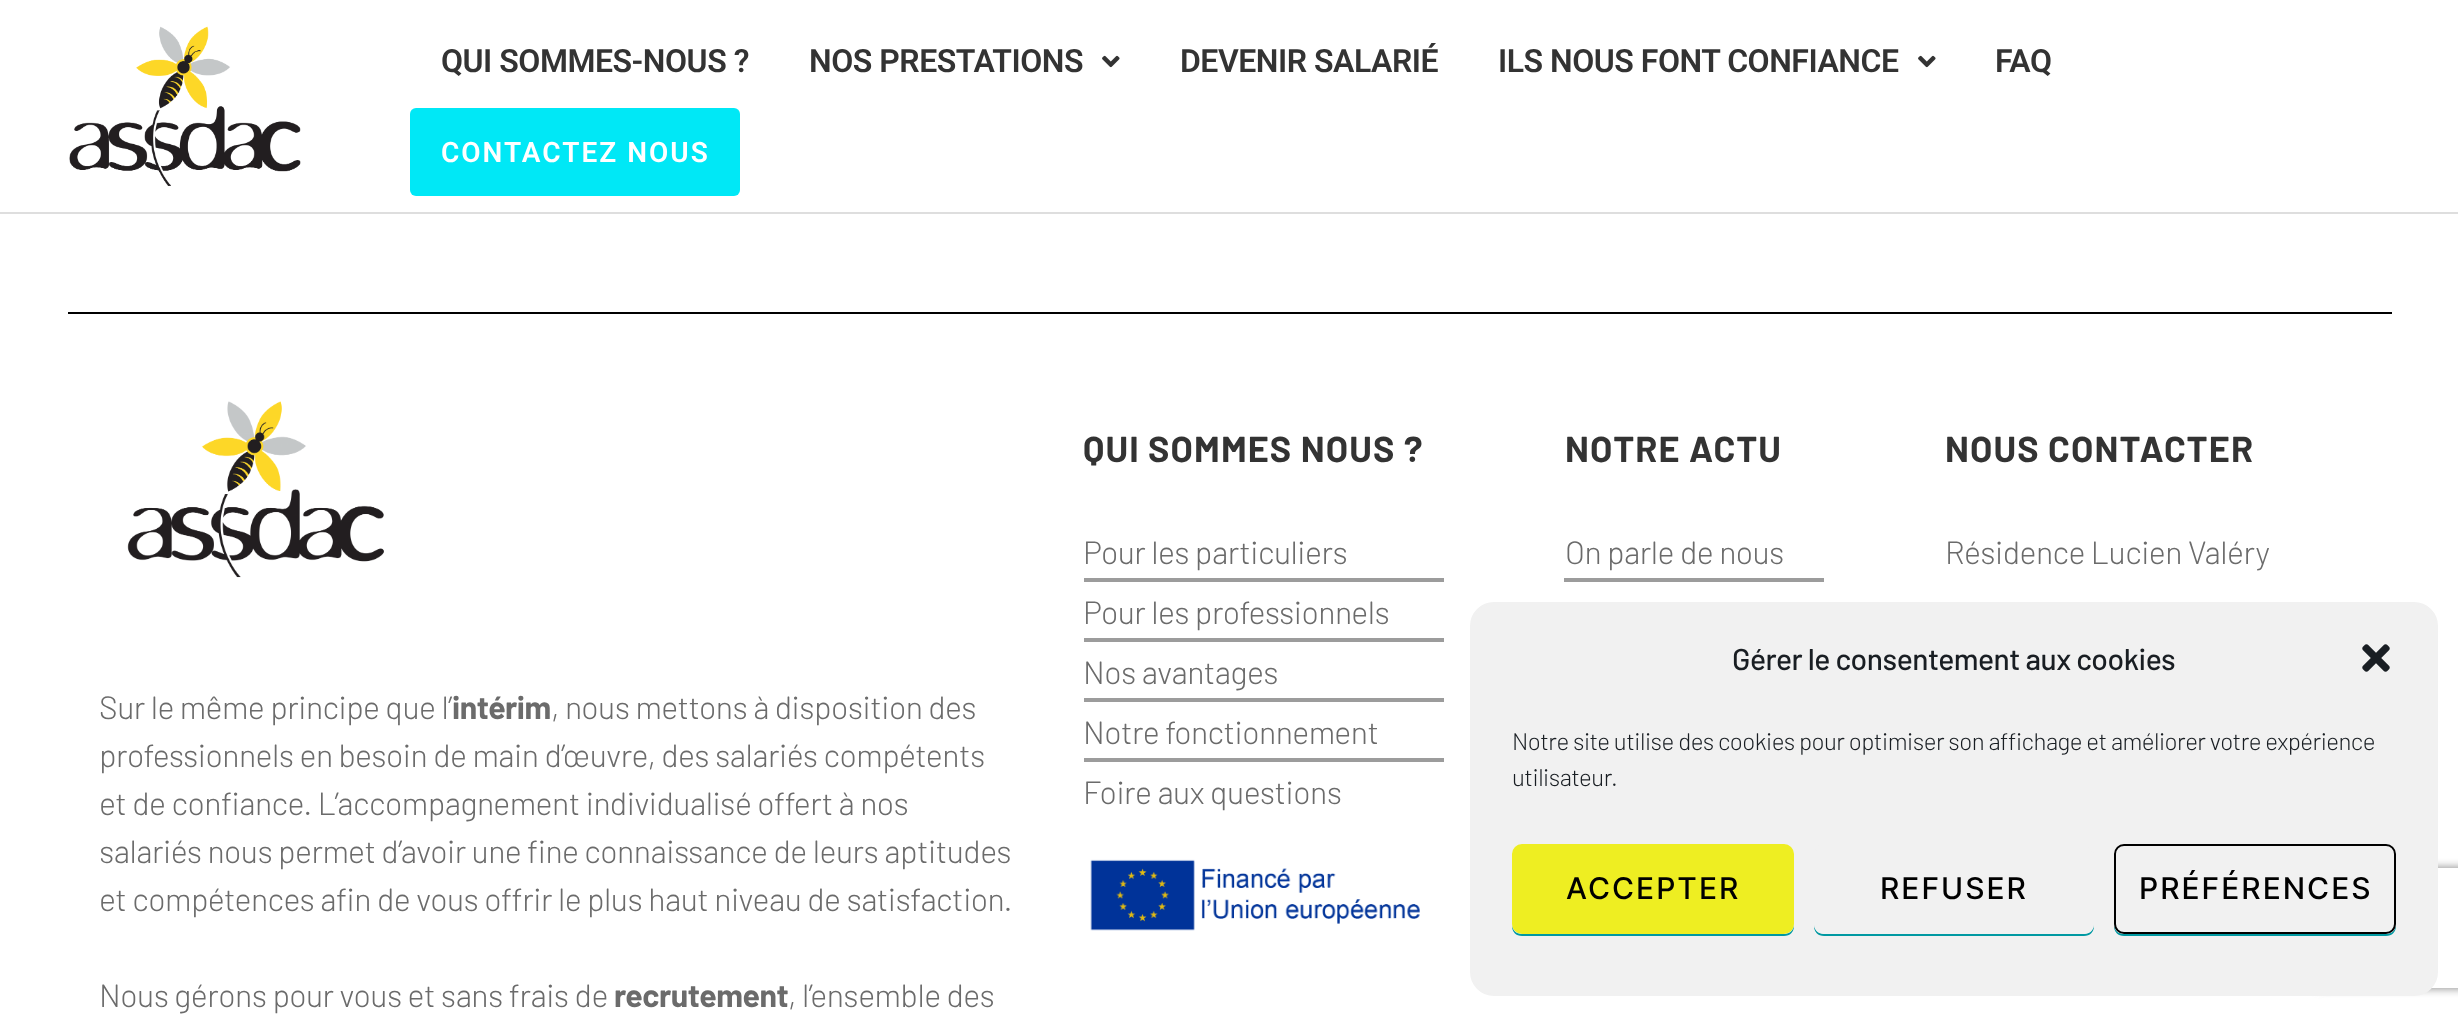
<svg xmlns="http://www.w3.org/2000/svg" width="2458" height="1015">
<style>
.a{font:600 32px Roboto;letter-spacing:-0.48px;fill:#333}
.b{font:600 28px Roboto;letter-spacing:2px;fill:#fff}
.c{font:bold 36px Barlow;letter-spacing:1.1px;fill:#333}
.d{font:300 32px Barlow;letter-spacing:-0.48px;fill:#6b6b6b}
.e{font:bold 32px Barlow;letter-spacing:-0.48px;fill:#6b6b6b}
.f{font:500 30px Barlow;letter-spacing:-0.48px;fill:#191e23}
.g{font:300 24px Barlow;letter-spacing:-0.48px;fill:#191e23}
.h{font:500 30px Inter;letter-spacing:2px;fill:#000}
</style>
<defs>
<clipPath id="clip1"><path d="M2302 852h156v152h-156zm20 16h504c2 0 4 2 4 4v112c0 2-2 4-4 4h-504c-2 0-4-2-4-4v-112c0-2 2-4 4-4z" clip-rule="evenodd"/></clipPath>
</defs>
<rect width="100%" height="100%" fill="#fff"/>
<path fill="#dedede" d="M0 212h2458v2H0z"/>
<image href="1.png" x="69" y="26" width="232" height="160"/>
<image href="2.png" x="1102" y="55" width="18" height="13"/>
<image href="2.png" x="1918" y="55" width="18" height="13"/>
<rect fill="#00e8f6" x="410" y="108" width="330" height="88" rx="6"/>
<path fill="#000" d="M68 312h2324v2H68z"/>
<path fill="#9c9c9c" d="M1084 578h360v4H1084z"/>
<path fill="#9c9c9c" d="M1084 638h360v4H1084z"/>
<path fill="#9c9c9c" d="M1084 698h360v4H1084z"/>
<path fill="#9c9c9c" d="M1084 758h360v4H1084z"/>
<image href="3.png" x="1090" y="859" width="330" height="72"/>
<path fill="#9c9c9c" d="M1564 578h260v4H1564z"/>
<image href="4.png" x="127" y="401" width="257" height="177"/>
<g clip-path="url(#clip1)">
<rect fill="#808080" filter="blur(5px)" x="2318" y="868" width="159" height="120" rx="4"/>
</g>
<rect fill="#f1f1f1" stroke="#f1f1f1" stroke-width="2" x="1471" y="603" width="966" height="392" rx="23"/>
<image href="5.png" x="2362" y="644" width="28" height="28"/>
<path fill="#0099a2" d="M1512 924v2c0 6 4 10 10 10h262c6 0 10-4 10-10v-2c0 6-4 10-10 10h-262c-6 0-10-4-10-10z"/>
<rect fill="#ee2" stroke="#ee2" stroke-width="2" x="1513" y="845" width="280" height="88" rx="9"/>
<path fill="#0099a2" d="M1814 924v2c0 6 4 10 10 10h260c6 0 10-4 10-10v-2c0 6-4 10-10 10h-260c-6 0-10-4-10-10z"/>
<rect fill="#f1f1f1" stroke="#f1f1f1" stroke-width="2" x="1815" y="845" width="278" height="88" rx="9"/>
<path fill="#0099a2" d="M2114 924v2c0 6 4 10 10 10h262c6 0 10-4 10-10v-2c0 6-4 10-10 10h-262c-6 0-10-4-10-10z"/>
<rect fill="#f1f1f1" stroke="#000" stroke-width="2" x="2115" y="845" width="280" height="88" rx="9"/>
<text class="a" x="441" y="72">QUI SOMMES-NOUS ?</text>
<text class="a" x="809" y="72">NOS PRESTATIONS</text>
<text class="a" x="1180" y="72">DEVENIR SALARIÉ</text>
<text class="a" x="1498" y="72">ILS NOUS FONT CONFIANCE</text>
<text class="a" x="1995" y="72">FAQ</text>
<text class="b" x="441" y="162">CONTACTEZ NOUS</text>
<text class="c" x="1083" y="462">QUI SOMMES NOUS ?</text>
<text class="d" x="1083" y="564">Pour les particuliers</text>
<text class="d" x="1083" y="624">Pour les professionnels</text>
<text class="d" x="1083" y="684">Nos avantages</text>
<text class="d" x="1083" y="744">Notre fonctionnement</text>
<text class="d" x="1083" y="804">Foire aux questions</text>
<text class="c" x="1565" y="462">NOTRE ACTU</text>
<text class="d" x="1565" y="564">On parle de nous</text>
<text class="c" x="1945" y="462">NOUS CONTACTER</text>
<text class="d" x="1945" y="564">Résidence Lucien Valéry</text>
<text class="d" x="99" y="719">Sur le même principe que l’</text>
<text class="e" x="452" y="719">intérim</text>
<text class="d" x="551" y="719">, nous mettons à disposition des</text>
<text class="d" x="99" y="767">professionnels en besoin de main d’œuvre, des salariés compétents</text>
<text class="d" x="99" y="815">et de confiance. L’accompagnement individualisé offert à nos</text>
<text class="d" x="99" y="863">salariés nous permet d’avoir une fine connaissance de leurs aptitudes</text>
<text class="d" x="99" y="911">et compétences afin de vous offrir le plus haut niveau de satisfaction.</text>
<text class="d" x="99" y="1007">Nous gérons pour vous et sans frais de</text>
<text class="e" x="614" y="1007">recrutement</text>
<text class="d" x="788" y="1007">, l’ensemble des</text>
<text class="f" x="1732" y="670">Gérer le consentement aux cookies</text>
<text class="g" x="1512" y="750">Notre site utilise des cookies pour optimiser son affichage et améliorer votre expérience</text>
<text class="g" x="1512" y="786">utilisateur.</text>
<text class="h" x="1566" y="899">ACCEPTER</text>
<text class="h" x="1880" y="899">REFUSER</text>
<text class="h" x="2139" y="899">PRÉFÉRENCES</text>
</svg>
